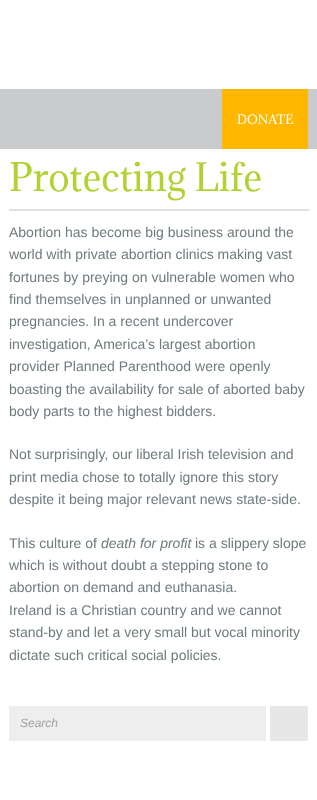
<svg xmlns="http://www.w3.org/2000/svg" width="317" height="800">
<style>
.a{font:12px Adamina;fill:#fff}
.b{font:36px Adamina;fill:#b2d234}
.c{font:14px Liberation Sans;fill:#6d7a7e}
.d{font:italic 14px Liberation Sans;fill:#6d7a7e}
.e{font:italic 12px Liberation Sans;fill:#a1a1a1}
</style>
<rect width="100%" height="100%" fill="#fff"/>
<path fill="#cacbcc" d="M0 89h317v60H0z"/>
<path fill="#ffb700" d="M222 89h86v60H222z"/>
<path fill="#e0e1e3" d="M9 209h300v2H9z"/>
<path fill="#eeeeef" d="M9 706h257v35H9z"/>
<path fill="#e7e7e8" d="M270 706h38v35H270z"/>
<text class="a" x="237" y="124">DONATE</text>
<text class="b" x="9" y="191">Protecting Life</text>
<text class="c" x="9" y="237">Abortion has become big business around the</text>
<text class="c" x="9" y="259">world with private abortion clinics making vast</text>
<text class="c" x="9" y="282">fortunes by preying on vulnerable women who</text>
<text class="c" x="9" y="304">find themselves in unplanned or unwanted</text>
<text class="c" x="9" y="326">pregnancies. In a recent undercover</text>
<text class="c" x="9" y="349">investigation, America’s largest abortion</text>
<text class="c" x="9" y="371">provider Planned Parenthood were openly</text>
<text class="c" x="9" y="394">boasting the availability for sale of aborted baby</text>
<text class="c" x="9" y="416">body parts to the highest bidders.</text>
<text class="c" x="9" y="459">Not surprisingly, our liberal Irish television and</text>
<text class="c" x="9" y="482">print media chose to totally ignore this story</text>
<text class="c" x="9" y="504">despite it being major relevant news state-side.</text>
<text class="c" x="9" y="548">This culture of</text>
<text class="d" x="101" y="548">death for profit</text>
<text class="c" x="195" y="548">is a slippery slope</text>
<text class="c" x="9" y="570">which is without doubt a stepping stone to</text>
<text class="c" x="9" y="592">abortion on demand and euthanasia.</text>
<text class="c" x="9" y="615">Ireland is a Christian country and we cannot</text>
<text class="c" x="9" y="637">stand-by and let a very small but vocal minority</text>
<text class="c" x="9" y="660">dictate such critical social policies.</text>
<text class="e" x="20" y="727">Search</text>
</svg>
